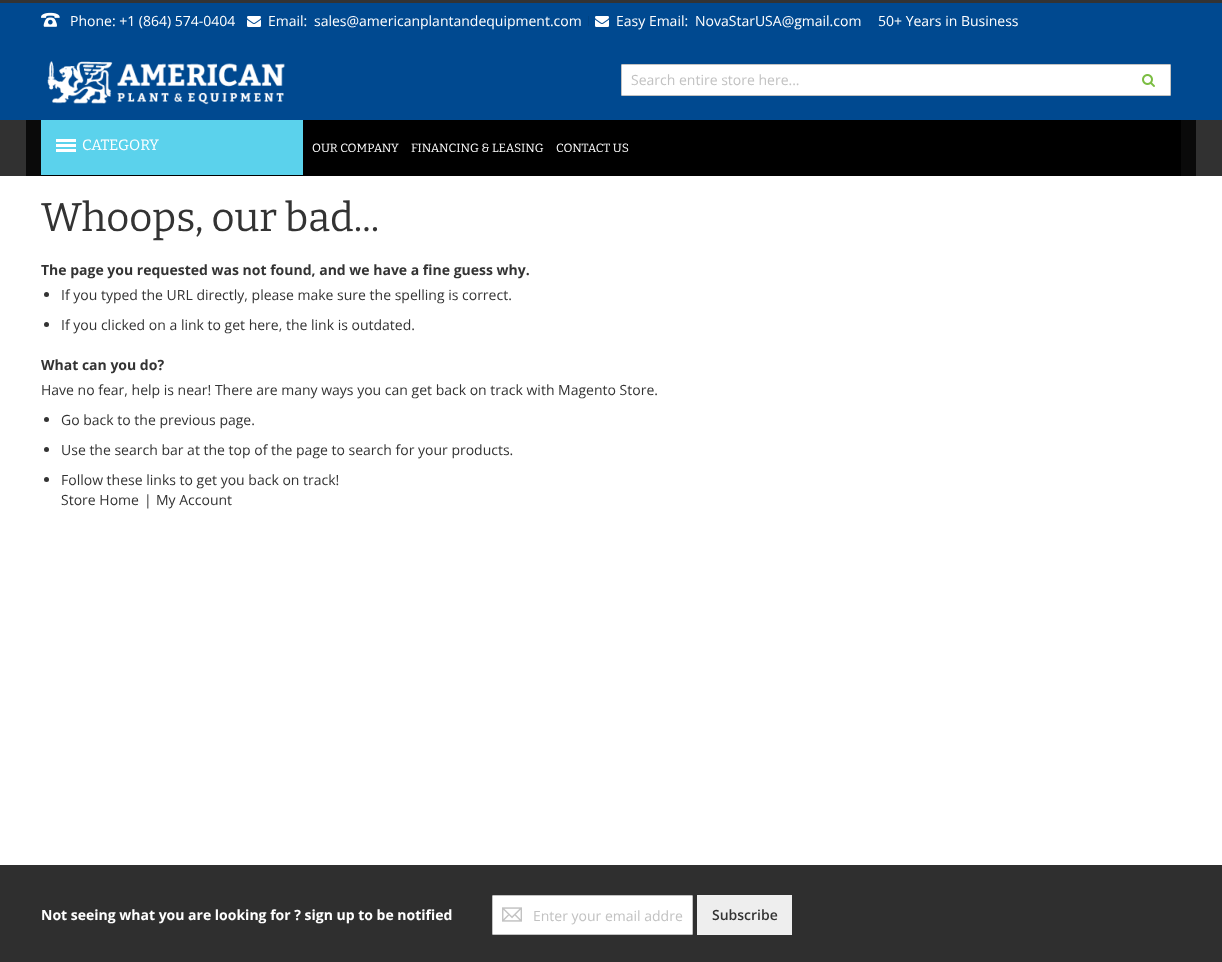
<svg xmlns="http://www.w3.org/2000/svg" width="1222" height="962">
<style>
.a{font:14px Open Sans;fill:#fff}
.b{font:14px Open Sans;fill:#c2c2c2}
.c{font:100 15px Bitter;fill:#fff}
.d{font:100 12px Bitter;fill:#fff}
.e{font:100 40px Bitter;fill:#333}
.f{font:bold 14px Open Sans;fill:#333}
.g{font:14px Open Sans;fill:#333}
.h{font:bold 14px Open Sans;fill:#fff}
.i{font:600 14px Open Sans;fill:#333}
</style>
<rect width="100%" height="100%" fill="#fff"/>
<path fill="#333" d="M0 0h1222v3H0z"/>
<path fill="#004990" d="M0 3h1222v117H0z"/>
<image href="1.png" x="41" y="12" width="19" height="15"/>
<path fill="#004384" d="M267 16h1v10H267z"/>
<image href="2.png" x="247" y="16" width="14" height="11"/>
<path fill="#004384" d="M588 16h1v10H588z"/>
<image href="2.png" x="595" y="16" width="14" height="11"/>
<image href="3.png" x="47" y="61" width="238" height="44"/>
<rect fill="#fff" stroke="#c2c2c2" x="621.5" y="64.5" width="549" height="31" rx="0.5"/>
<image href="4.png" x="1142" y="74" width="13" height="13"/>
<path fill="#313131" d="M0 120h1222v56H0z"/>
<path fill="#0a0a0a" d="M26 120h1170v56H26z"/>
<path fill="#000" d="M41 120h1140v56H41z"/>
<path fill="#5bd2ec" d="M41 120h262v55H41z"/>
<path fill="#fff" d="M56 139h20v3H56z"/>
<path fill="#fff" d="M56 144h20v3H56z"/>
<path fill="#fff" d="M56 149h20v3H56z"/>
<circle fill="#333" cx="46.5" cy="294.5" r="2.5"/>
<circle fill="#333" cx="46.5" cy="324.5" r="2.5"/>
<circle fill="#333" cx="46.5" cy="419.5" r="2.5"/>
<circle fill="#333" cx="46.5" cy="449.5" r="2.5"/>
<circle fill="#333" cx="46.5" cy="479.5" r="2.5"/>
<path fill="#2f2f2f" d="M0 865h1222v97H0z"/>
<rect fill="#fff" stroke="#c2c2c2" x="492.5" y="895.5" width="200" height="39" rx="0.5"/>
<image href="5.png" x="502" y="907" width="20" height="15"/>
<path fill="#eee" d="M697 895h95v40H697z"/>
<text class="a" x="70" y="26">Phone: +1 (864) 574-0404</text>
<text class="a" x="268" y="26">Email:</text>
<text class="a" x="314" y="26">sales@americanplantandequipment.com</text>
<text class="a" x="616" y="26">Easy Email:</text>
<text class="a" x="695" y="26">NovaStarUSA@gmail.com</text>
<text class="a" x="878" y="26">50+ Years in Business</text>
<text class="b" x="631" y="85">Search entire store here...</text>
<text class="c" x="82" y="150">CATEGORY</text>
<text class="d" x="312" y="152">OUR COMPANY</text>
<text class="d" x="411" y="152">FINANCING &amp; LEASING</text>
<text class="d" x="556" y="152">CONTACT US</text>
<text class="e" x="41" y="231">Whoops, our bad...</text>
<text class="f" x="41" y="275">The page you requested was not found, and we have a fine guess why.</text>
<text class="g" x="61" y="300">If you typed the URL directly, please make sure the spelling is correct.</text>
<text class="g" x="61" y="330">If you clicked on a link to get here, the link is outdated.</text>
<text class="f" x="41" y="370">What can you do?</text>
<text class="g" x="41" y="395">Have no fear, help is near! There are many ways you can get back on track with Magento Store.</text>
<text class="g" x="61" y="425">Go back to the previous page.</text>
<text class="g" x="61" y="455">Use the search bar at the top of the page to search for your products.</text>
<text class="g" x="61" y="485">Follow these links to get you back on track!</text>
<text class="g" x="61" y="505">Store Home</text>
<text class="g" x="144" y="505">|</text>
<text class="g" x="156" y="505">My Account</text>
<text class="h" x="41" y="920">Not seeing what you are looking for ? sign up to be notified</text>
<text class="b" x="533" y="921">Enter your email addre</text>
<text class="i" x="712" y="920">Subscribe</text>
</svg>
